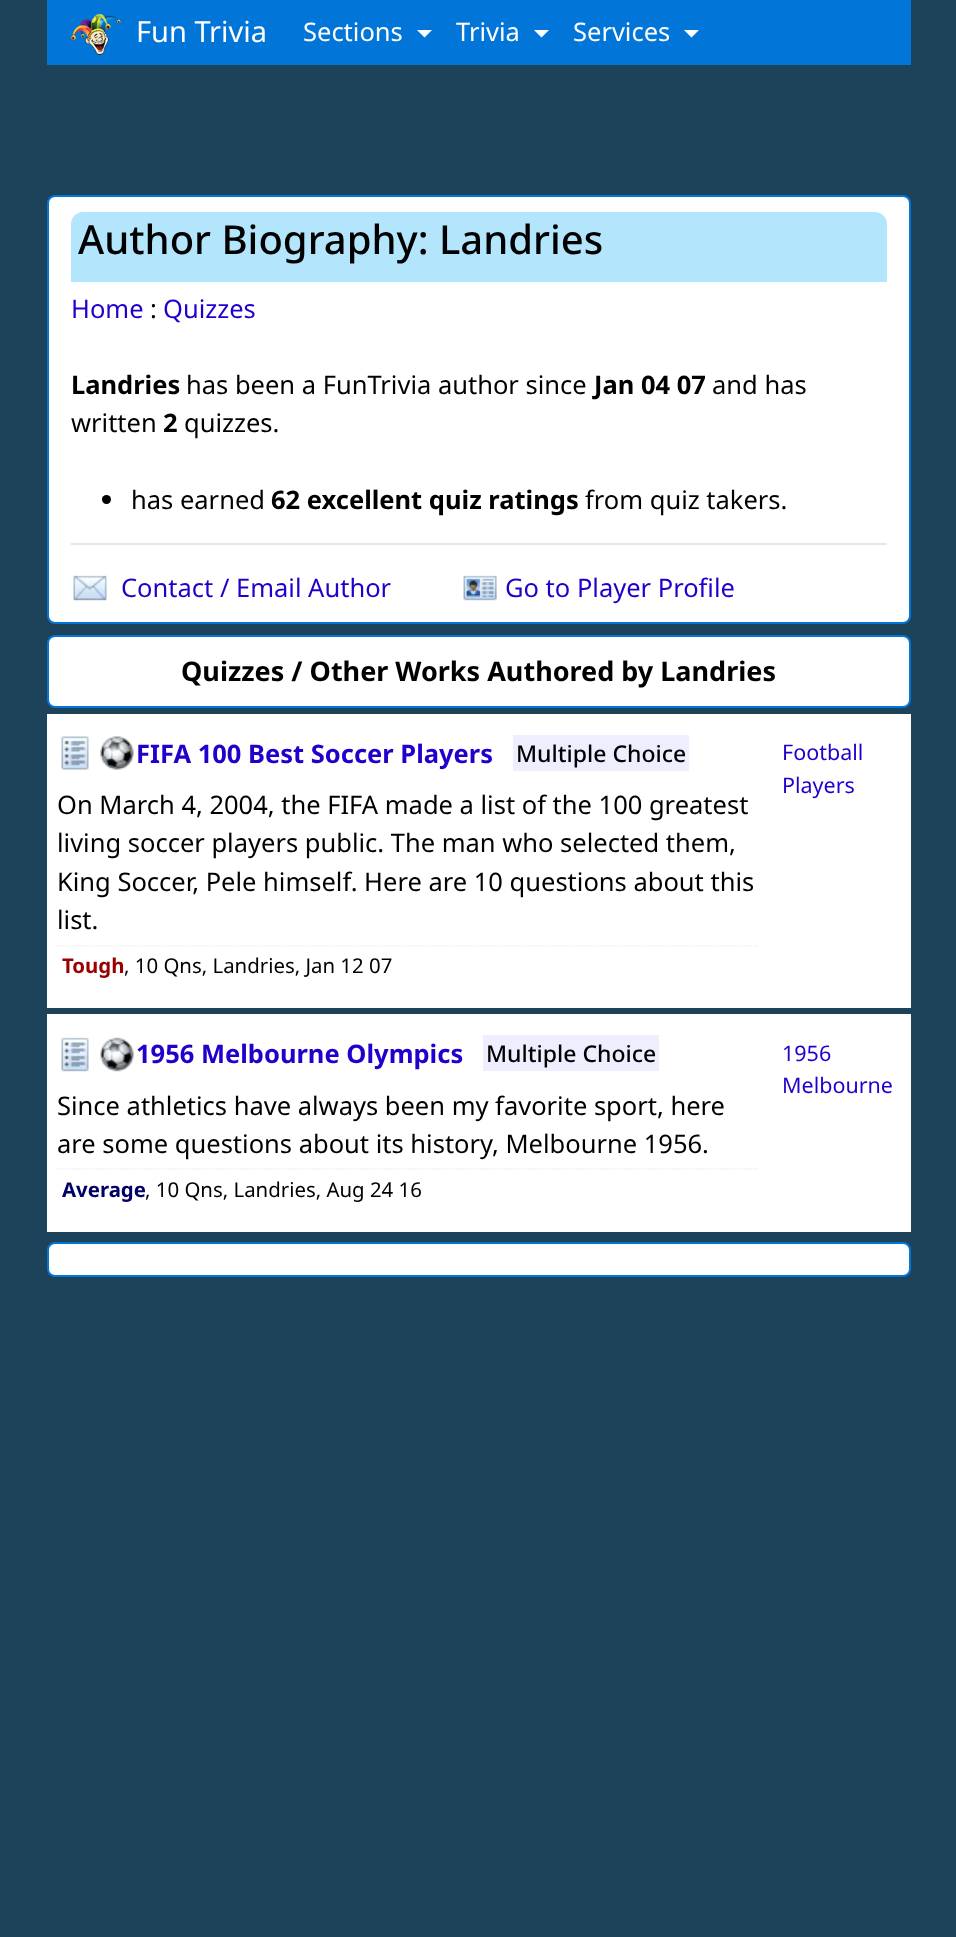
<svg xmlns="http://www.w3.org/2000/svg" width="956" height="1937">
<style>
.a{font:29px Noto Sans;fill:#fff}
.b{font:25.5px Noto Sans;fill:#fff}
.c{font:500 40px Noto Sans;fill:#000}
.d{font:25.5px Noto Sans;fill:#20c}
.e{font:25.5px Noto Sans;fill:#000}
.f{font:bold 25.5px Noto Sans;fill:#000}
.g{font:bold 27px Noto Sans;fill:#000}
.h{font:bold 25.5px Noto Sans;fill:#20c}
.i{font:500 23px Noto Sans;fill:#000}
.j{font:bold 20.4px Noto Sans;fill:#900}
.k{font:20.4px Noto Sans;fill:#000}
.l{font:21.5px Noto Sans;fill:#20c}
.m{font:bold 20.4px Noto Sans;fill:#006}
</style>
<rect width="100%" height="100%" fill="#1d435a"/>
<path fill="#0275d8" d="M47 0h864v65H47z"/>
<image href="1.png" x="70" y="13" width="51" height="42"/>
<path fill="#fff" d="M417 30h15l-7.5 7.5z"/>
<path fill="#fff" d="M534 30h15l-7.5 7.5z"/>
<path fill="#fff" d="M684 30h15l-7.5 7.5z"/>
<rect fill="#fff" stroke="#0275d8" stroke-width="2" x="48" y="196" width="862" height="427" rx="7"/>
<path fill="#b3e5fc" d="M83 212h792c6.5 0 12 5.5 12 12v58h-816v-58c0-6.5 5.5-12 12-12z"/>
<circle fill="#000" cx="106.5" cy="499.5" r="4.5"/>
<path fill="#e6e6e6" d="M71 543h816v2H71z"/>
<image href="2.png" x="73" y="575" width="34" height="26"/>
<image href="3.png" x="463" y="575" width="34" height="26"/>
<rect fill="#fff" stroke="#0275d8" stroke-width="2" x="48" y="636" width="862" height="71" rx="7"/>
<path fill="#fff" d="M47 714h864v294H47z"/>
<image href="4.png" x="61" y="736" width="28" height="34"/>
<image href="5.png" x="100" y="736" width="34" height="34"/>
<path fill="#eef" d="M513 735h176v36H513z"/>
<path fill="none" stroke="#eee" stroke-width="1.5" stroke-dasharray="1.5 1.5" d="M57 946h702"/>
<path fill="#fff" d="M47 1014h864v218H47z"/>
<image href="6.png" x="61" y="1037" width="28" height="35"/>
<image href="7.png" x="100" y="1037" width="34" height="35"/>
<path fill="#eef" d="M483 1035h176v36H483z"/>
<path fill="none" stroke="#eee" stroke-width="1.5" stroke-dasharray="1.5 1.5" d="M57 1169h702"/>
<rect fill="#fff" stroke="#0275d8" stroke-width="2" x="48" y="1243" width="862" height="33" rx="7"/>
<text class="a" x="136" y="42">Fun Trivia</text>
<text class="b" x="303" y="41">Sections</text>
<text class="b" x="456" y="41">Trivia</text>
<text class="b" x="573" y="41">Services</text>
<text class="c" x="78" y="254">Author Biography: Landries</text>
<text class="d" x="71" y="318">Home</text>
<text class="e" x="150" y="318">:</text>
<text class="d" x="163" y="318">Quizzes</text>
<text class="f" x="71" y="394">Landries</text>
<text class="e" x="186" y="394">has been a FunTrivia author since</text>
<text class="f" x="594" y="394">Jan 04 07</text>
<text class="e" x="712" y="394">and has</text>
<text class="e" x="71" y="432">written</text>
<text class="f" x="163" y="432">2</text>
<text class="e" x="184" y="432">quizzes.</text>
<text class="e" x="131" y="509">has earned</text>
<text class="f" x="271" y="509">62 excellent quiz ratings</text>
<text class="e" x="585" y="509">from quiz takers.</text>
<text class="d" x="121" y="597">Contact / Email Author</text>
<text class="d" x="505" y="597">Go to Player Profile</text>
<text class="g" x="181" y="681">Quizzes / Other Works Authored by Landries</text>
<text class="h" x="136" y="763">FIFA 100 Best Soccer Players</text>
<text class="i" x="516" y="762">Multiple Choice</text>
<text class="e" x="57" y="814">On March 4, 2004, the FIFA made a list of the 100 greatest</text>
<text class="e" x="57" y="852">living soccer players public. The man who selected them,</text>
<text class="e" x="57" y="891">King Soccer, Pele himself. Here are 10 questions about this</text>
<text class="e" x="57" y="929">list.</text>
<text class="j" x="62" y="973">Tough</text>
<text class="k" x="124" y="973">, 10 Qns, Landries, Jan 12 07</text>
<text class="l" x="782" y="760">Football</text>
<text class="l" x="782" y="793">Players</text>
<text class="h" x="136" y="1063">1956 Melbourne Olympics</text>
<text class="i" x="486" y="1062">Multiple Choice</text>
<text class="e" x="57" y="1115">Since athletics have always been my favorite sport, here</text>
<text class="e" x="57" y="1153">are some questions about its history, Melbourne 1956.</text>
<text class="m" x="62" y="1197">Average</text>
<text class="k" x="145" y="1197">, 10 Qns, Landries, Aug 24 16</text>
<text class="l" x="782" y="1061">1956</text>
<text class="l" x="782" y="1093">Melbourne</text>
</svg>
